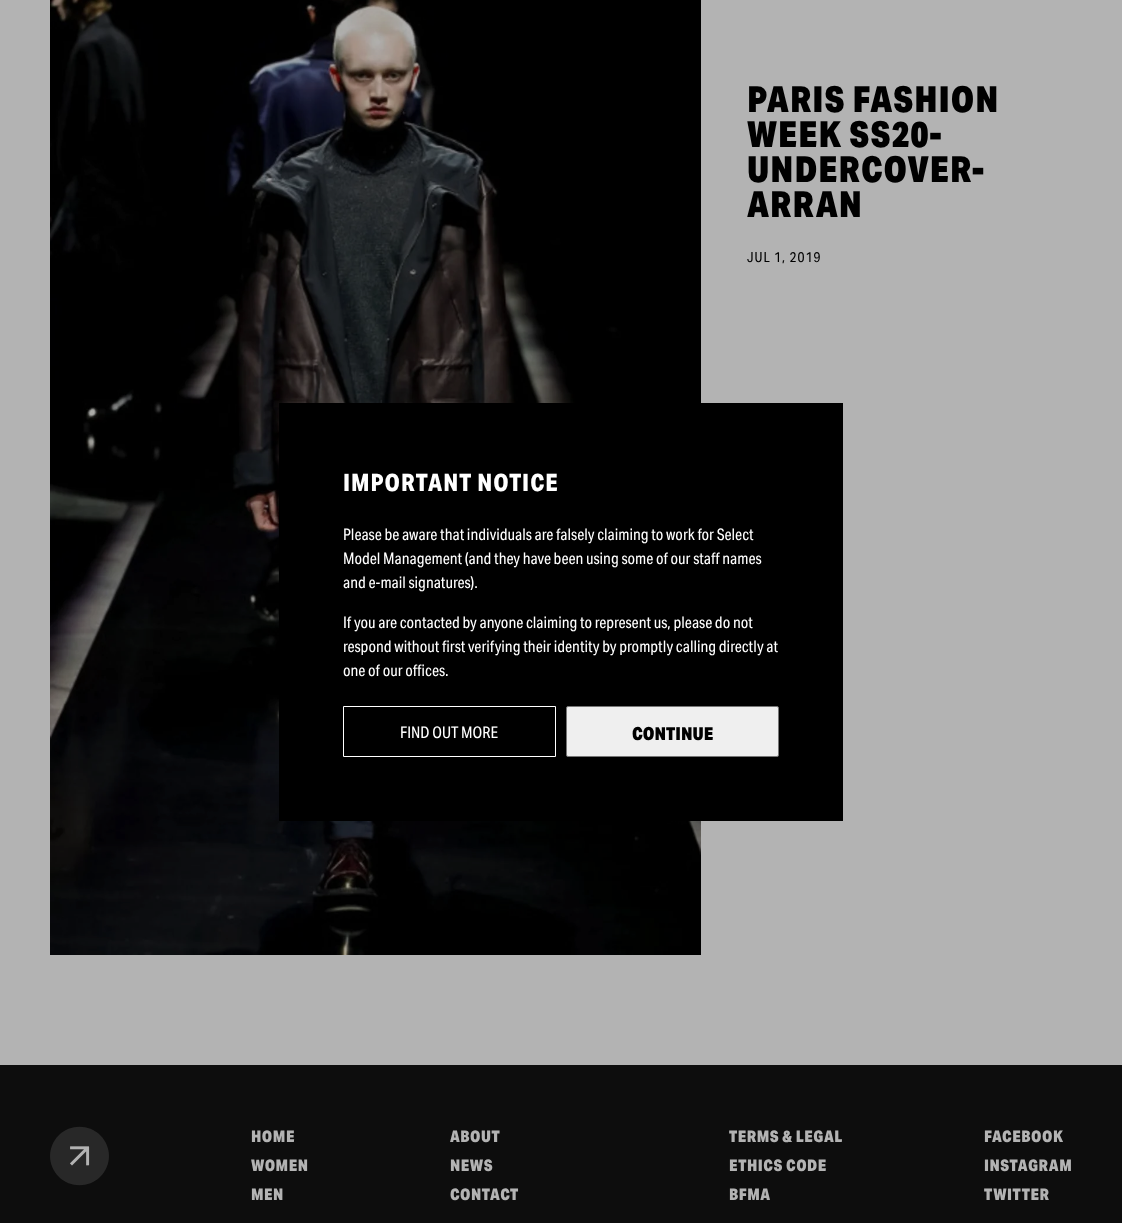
<svg xmlns="http://www.w3.org/2000/svg" width="1122" height="1223">
<style>
.a{font:900 36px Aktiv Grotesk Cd;letter-spacing:1px;fill:#000}
.b{font:14px Aktiv Grotesk Cd;letter-spacing:1px;fill:#000}
.c{font:900 16px Aktiv Grotesk Cd;letter-spacing:0.5px;fill:#b3b3b3}
.d{font:bold 24px Aktiv Grotesk Cd;letter-spacing:1px;fill:#fff}
.e{font:16px Aktiv Grotesk Cd;fill:#fff}
.f{font:900 18px Aktiv Grotesk Cd;fill:#000}
</style>
<rect width="100%" height="100%" fill="#b3b3b3"/>
<image href="1.png" x="50" y="0" width="651" height="955"/>
<path fill="#0d0d0d" d="M0 1065h1122v158H0z"/>
<path fill="#282828" d="M100 1135c12 12 12 30 0 42c-11 11-30 11-41 0c-12-12-12-30 0-42c11-11 30-11 41 0z"/>
<image href="2.png" x="70" y="1146" width="20" height="20"/>
<path fill="#000" d="M279 403h564v418H279z"/>
<path fill="none" stroke="#fff" d="M343.5 706.5h212v50H343.5z"/>
<rect fill="#efefef" stroke="#767676" x="566.5" y="706.5" width="212" height="50" rx="1.5"/>
<text class="a" x="747" y="112">PARIS FASHION</text>
<text class="a" x="747" y="147">WEEK SS20-</text>
<text class="a" x="747" y="182">UNDERCOVER-</text>
<text class="a" x="747" y="217">ARRAN</text>
<text class="b" x="747" y="262">JUL 1, 2019</text>
<text class="c" x="251" y="1142">HOME</text>
<text class="c" x="251" y="1171">WOMEN</text>
<text class="c" x="251" y="1200">MEN</text>
<text class="c" x="450" y="1142">ABOUT</text>
<text class="c" x="450" y="1171">NEWS</text>
<text class="c" x="450" y="1200">CONTACT</text>
<text class="c" x="729" y="1142">TERMS &amp; LEGAL</text>
<text class="c" x="729" y="1171">ETHICS CODE</text>
<text class="c" x="729" y="1200">BFMA</text>
<text class="c" x="984" y="1142">FACEBOOK</text>
<text class="c" x="984" y="1171">INSTAGRAM</text>
<text class="c" x="984" y="1200">TWITTER</text>
<text class="d" x="343" y="491">IMPORTANT NOTICE</text>
<text class="e" x="343" y="540">Please be aware that individuals are falsely claiming to work for Select</text>
<text class="e" x="343" y="564">Model Management (and they have been using some of our staff names</text>
<text class="e" x="343" y="588">and e-mail signatures).</text>
<text class="e" x="343" y="628">If you are contacted by anyone claiming to represent us, please do not</text>
<text class="e" x="343" y="652">respond without first verifying their identity by promptly calling directly at</text>
<text class="e" x="343" y="676">one of our offices.</text>
<text class="e" x="400" y="738">FIND OUT MORE</text>
<text class="f" x="632" y="740">CONTINUE</text>
</svg>
